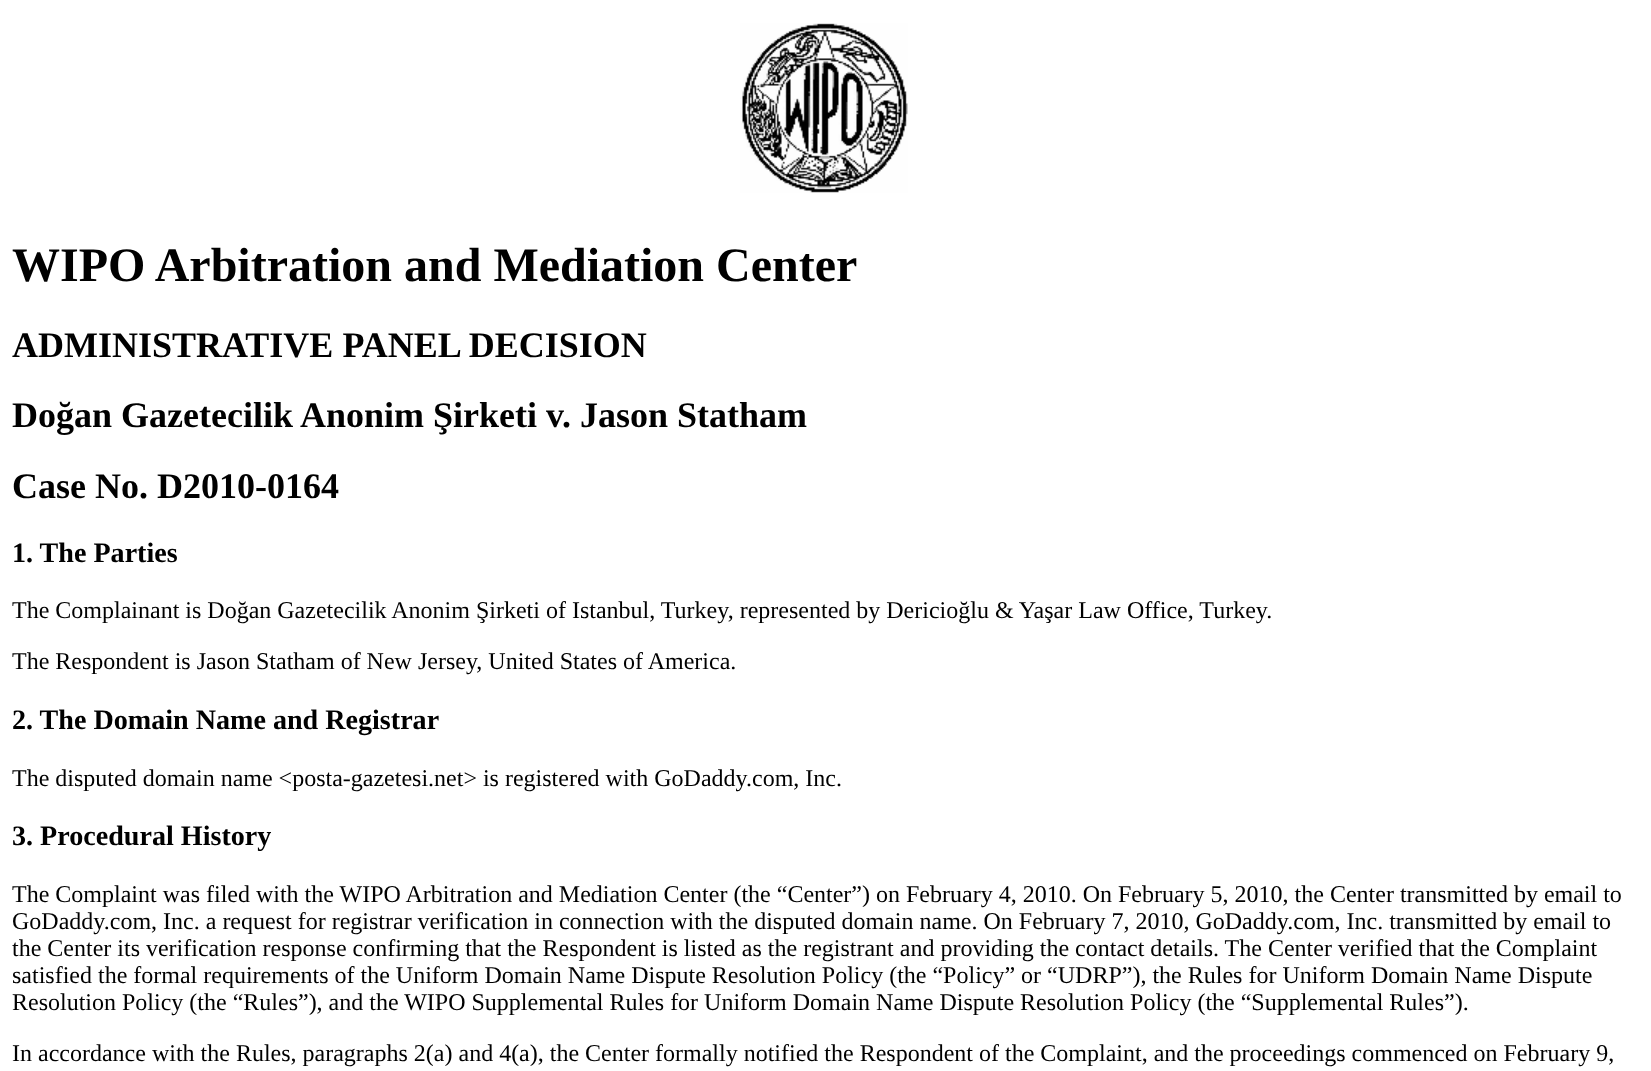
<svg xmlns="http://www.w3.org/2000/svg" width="1651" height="1071">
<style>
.a{font:bold 48px Liberation Serif;fill:#000}
.b{font:bold 36px Liberation Serif;fill:#000}
.c{font:bold 28.1px Liberation Serif;fill:#000}
.d{font:24px Liberation Serif;fill:#000}
</style>
<rect width="100%" height="100%" fill="#fff"/>
<image href="1.png" x="740" y="23" width="168" height="170"/>
<text class="a" x="12" y="281">WIPO Arbitration and Mediation Center</text>
<text class="b" x="12" y="357">ADMINISTRATIVE PANEL DECISION</text>
<text class="b" x="12" y="427">Doğan Gazetecilik Anonim Şirketi v. Jason Statham</text>
<text class="b" x="12" y="498">Case No. D2010-0164</text>
<text class="c" x="12" y="562">1. The Parties</text>
<text class="d" x="12" y="618">The Complainant is Doğan Gazetecilik Anonim Şirketi of Istanbul, Turkey, represented by Dericioğlu &amp; Yaşar Law Office, Turkey.</text>
<text class="d" x="12" y="669">The Respondent is Jason Statham of New Jersey, United States of America.</text>
<text class="c" x="12" y="729">2. The Domain Name and Registrar</text>
<text class="d" x="12" y="786">The disputed domain name &lt;posta-gazetesi.net&gt; is registered with GoDaddy.com, Inc.</text>
<text class="c" x="12" y="845">3. Procedural History</text>
<text class="d" x="12" y="902">The Complaint was filed with the WIPO Arbitration and Mediation Center (the “Center”) on February 4, 2010. On February 5, 2010, the Center transmitted by email to</text>
<text class="d" x="12" y="929">GoDaddy.com, Inc. a request for registrar verification in connection with the disputed domain name. On February 7, 2010, GoDaddy.com, Inc. transmitted by email to</text>
<text class="d" x="12" y="956">the Center its verification response confirming that the Respondent is listed as the registrant and providing the contact details. The Center verified that the Complaint</text>
<text class="d" x="12" y="983">satisfied the formal requirements of the Uniform Domain Name Dispute Resolution Policy (the “Policy” or “UDRP”), the Rules for Uniform Domain Name Dispute</text>
<text class="d" x="12" y="1010">Resolution Policy (the “Rules”), and the WIPO Supplemental Rules for Uniform Domain Name Dispute Resolution Policy (the “Supplemental Rules”).</text>
<text class="d" x="12" y="1061">In accordance with the Rules, paragraphs 2(a) and 4(a), the Center formally notified the Respondent of the Complaint, and the proceedings commenced on February 9,</text>
</svg>
